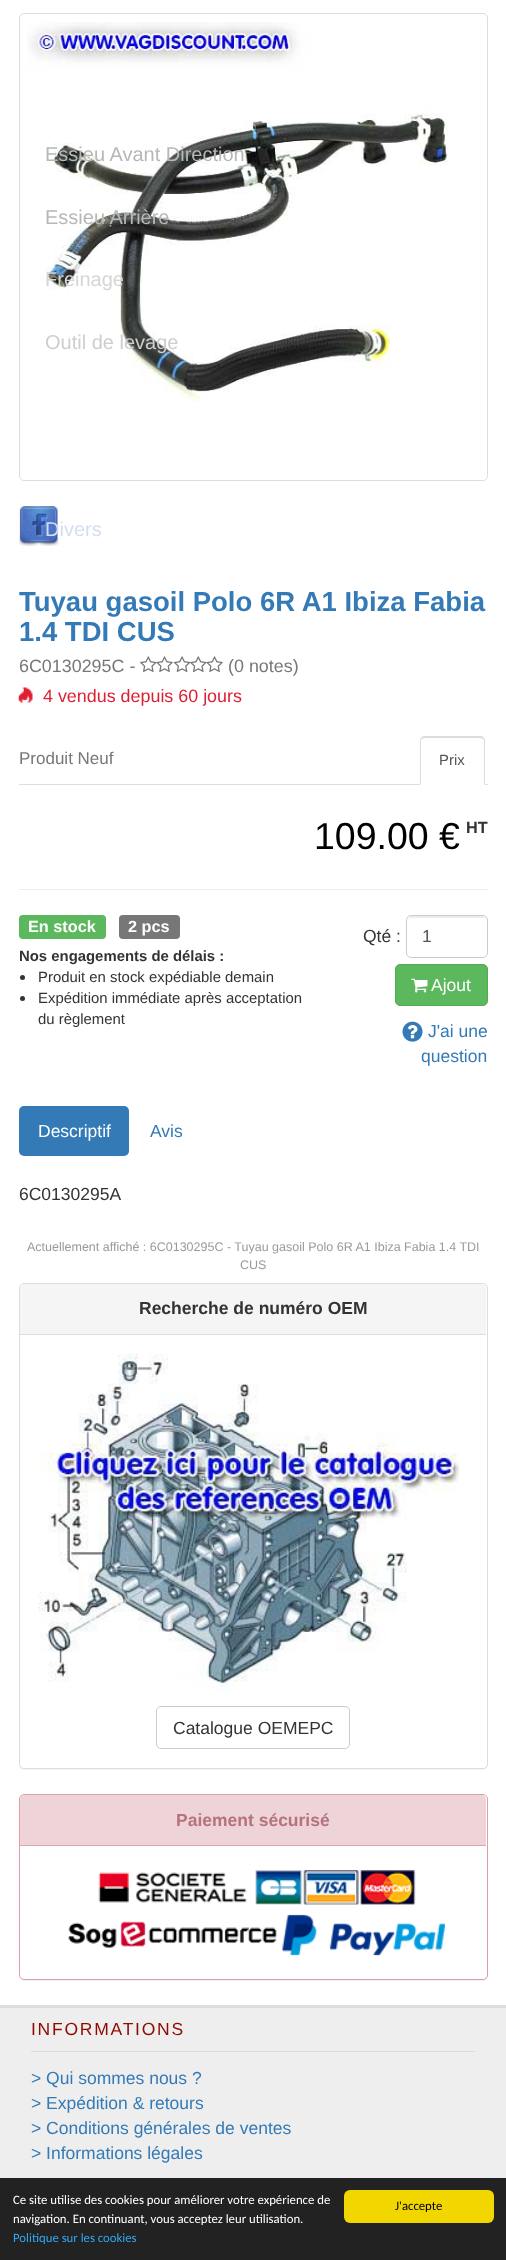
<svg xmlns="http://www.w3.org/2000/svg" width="506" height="2260">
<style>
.a{font:20px Liberation Sans;fill:#b6b8b6}
.b{font:20px Liberation Sans;fill:#d4d5d4}
.c{font:20px Liberation Sans;fill:#cdcecd}
.d{font:20px Liberation Sans;fill:#d5def0}
.e{font:bold 27.5px Liberation Sans;fill:#337ab7}
.f{font:17.9px Liberation Sans;fill:#777}
.g{font:17.9px Liberation Sans;fill:#de1e31}
.h{font:17px Liberation Sans;fill:#777}
.i{font:14.9px Liberation Sans;fill:#555}
.j{font:37.5px Liberation Sans;fill:#000}
.k{font:bold 16.25px Liberation Sans;fill:#333}
.l{font:bold 16.25px Liberation Sans;fill:#fff}
.m{font:bold 14.9px Liberation Sans;fill:#333}
.n{font:14.9px Liberation Sans;fill:#333}
.o{font:17.5px Liberation Sans;fill:#333}
.p{font:17.5px Liberation Sans;fill:#555}
.q{font:17.5px Liberation Sans;fill:#fff}
.r{font:17.5px Liberation Sans;fill:#337ab7}
.s{font:12.5px Liberation Sans;fill:#9a9a9a}
.t{font:bold 17.5px Liberation Sans;fill:#333}
.u{font:bold 17.5px Liberation Sans;fill:#b6737d}
.v{font:17.5px Liberation Sans;letter-spacing:1.75px;fill:#8e0b00}
.w{font:12.75px Carlito;fill:#fff}
.x{font:12.75px Carlito;fill:#31a8f0}
.y{font:12.75px Carlito;fill:#000}
</style>
<rect width="100%" height="100%" fill="#fff"/>
<rect fill="none" stroke="#ddd" x="19.5" y="13.5" width="468" height="467" rx="4.5"/>
<image href="1.png" x="27" y="22" width="422" height="380"/>
<image href="2.png" x="19" y="506" width="40" height="40"/>
<image href="3.png" x="140" y="656" width="17" height="16"/>
<image href="4.png" x="156" y="656" width="17" height="16"/>
<image href="5.png" x="173" y="656" width="18" height="16"/>
<image href="6.png" x="190" y="656" width="17" height="16"/>
<image href="4.png" x="206" y="656" width="17" height="16"/>
<image href="7.png" x="18" y="687" width="15" height="16"/>
<path fill="#ddd" d="M19 784h469v1H19z"/>
<path fill="#fff" d="M425 736h55c3 0 5 2 5 5v44h-65v-44c0-3 2-5 5-5z"/>
<path fill="#ddd" d="M425 738l-3 1l-1-1l2-2h59l2 2l-1 1l-3-1z"/>
<path fill="#ddd" d="M485 785v-44c0-1 0-3-1-3l-1 1l1 1v44z"/>
<path fill="#ddd" d="M420 785l1-1v-44l1-1l-1-1c-1 0-1 2-1 3z"/>
<path fill="#eee" d="M19 889h469v1H19z"/>
<rect fill="#5cb85c" x="19" y="915" width="87" height="24" rx="4"/>
<rect fill="#777" x="119" y="915" width="61" height="24" rx="4"/>
<circle fill="#333" cx="22.5" cy="977.5" r="2.5"/>
<circle fill="#333" cx="22.5" cy="998.5" r="2.5"/>
<path fill="#ececec" d="M411 918h71c3 0 4 1 4 3c0-8-11-5-16-5h-46c-5 0-16-3-16 5c0-2 1-3 3-3z"/>
<rect fill="none" stroke="#ccc" x="406.5" y="915.5" width="81" height="42" rx="4.5"/>
<rect fill="#5cb85c" stroke="#4cae4c" x="395.5" y="964.5" width="92" height="41" rx="4.5"/>
<image href="8.png" x="411" y="978" width="17" height="15"/>
<image href="9.png" x="402" y="1021" width="21" height="21"/>
<rect fill="#337ab7" x="19" y="1106" width="110" height="50" rx="5"/>
<rect fill="#0000000d" filter="blur(0.5px)" x="19" y="1284" width="469" height="486" rx="5"/>
<rect fill="#fff" stroke="#ddd" x="19.5" y="1283.5" width="468" height="485" rx="4.5"/>
<path fill="#f5f5f5" d="M24 1284h458c2 0 4 2 4 4v47h-466v-47c0-2 2-4 4-4z"/>
<path fill="#ddd" d="M20 1334h466v1H20z"/>
<image href="10.png" x="38" y="1353" width="422" height="338"/>
<rect fill="none" stroke="#ccc" x="156.5" y="1706.5" width="193" height="42" rx="4.5"/>
<rect fill="#0000000d" filter="blur(0.5px)" x="19" y="1795" width="469" height="186" rx="5"/>
<rect fill="#fff" stroke="#e19ea9" x="19.5" y="1794.5" width="468" height="185" rx="4.5"/>
<path fill="#eed4d8" d="M24 1795h458c2 0 4 2 4 4v47h-466v-47c0-2 2-4 4-4z"/>
<path fill="#d7a8b0" d="M20 1845h466v1H20z"/>
<image href="11.png" x="98" y="1872" width="149" height="31"/>
<image href="12.png" x="255" y="1870" width="161" height="35"/>
<image href="13.png" x="68" y="1921" width="209" height="28"/>
<image href="14.png" x="282" y="1914" width="163" height="42"/>
<path fill="#eee" d="M0 2008h506v170H0z"/>
<path fill="#ddd" d="M0 2005h506v3H0z"/>
<path fill="#ddd" d="M31 2051h444v1H31z"/>
<path fill="#222" d="M0 2178h506v82H0z"/>
<rect fill="#f1d600" x="344" y="2190" width="150" height="33" rx="6"/>
<text class="a" x="45" y="161">Essieu Avant Direction</text>
<text class="a" x="45" y="224">Essieu Arrière</text>
<text class="b" x="45" y="286">Freinage</text>
<text class="c" x="45" y="349">Outil de levage</text>
<text class="d" x="45" y="536">Divers</text>
<text class="e" x="19" y="611">Tuyau gasoil Polo 6R A1 Ibiza Fabia</text>
<text class="e" x="19" y="641">1.4 TDI CUS</text>
<text class="f" x="19" y="672">6C0130295C -</text>
<text class="f" x="228" y="672">(0 notes)</text>
<text class="g" x="43" y="702">4 vendus depuis 60 jours</text>
<text class="h" x="19" y="764">Produit Neuf</text>
<text class="i" x="439" y="765">Prix</text>
<text class="j" x="314" y="849">109.00 €</text>
<text class="k" x="466" y="833">HT</text>
<text class="l" x="28" y="932">En stock</text>
<text class="l" x="128" y="932">2 pcs</text>
<text class="m" x="19" y="961">Nos engagements de délais :</text>
<text class="n" x="38" y="982">Produit en stock expédiable demain</text>
<text class="n" x="38" y="1003">Expédition immédiate après acceptation</text>
<text class="n" x="38" y="1024">du règlement</text>
<text class="o" x="363" y="942">Qté :</text>
<text class="p" x="422" y="942">1</text>
<text class="q" x="431" y="991">Ajout</text>
<text class="r" x="428" y="1037">J'ai une</text>
<text class="r" x="421" y="1062">question</text>
<text class="q" x="38" y="1137">Descriptif</text>
<text class="r" x="150" y="1137">Avis</text>
<text class="o" x="19" y="1200">6C0130295A</text>
<text class="s" x="27" y="1251">Actuellement affiché : 6C0130295C - Tuyau gasoil Polo 6R A1 Ibiza Fabia 1.4 TDI</text>
<text class="s" x="240" y="1269">CUS</text>
<text class="t" x="139" y="1314">Recherche de numéro OEM</text>
<text class="o" x="173" y="1734">Catalogue OEMEPC</text>
<text class="u" x="176" y="1826">Paiement sécurisé</text>
<text class="v" x="31" y="2035">INFORMATIONS</text>
<text class="r" x="31" y="2084">&gt; Qui sommes nous ?</text>
<text class="r" x="31" y="2109">&gt; Expédition &amp; retours</text>
<text class="r" x="31" y="2134">&gt; Conditions générales de ventes</text>
<text class="r" x="31" y="2159">&gt; Informations légales</text>
<text class="w" x="13" y="2204">Ce site utilise des cookies pour améliorer votre expérience de</text>
<text class="w" x="13" y="2223">navigation. En continuant, vous acceptez leur utilisation.</text>
<text class="x" x="13" y="2242">Politique sur les cookies</text>
<text class="y" x="395" y="2210">J'accepte</text>
</svg>
